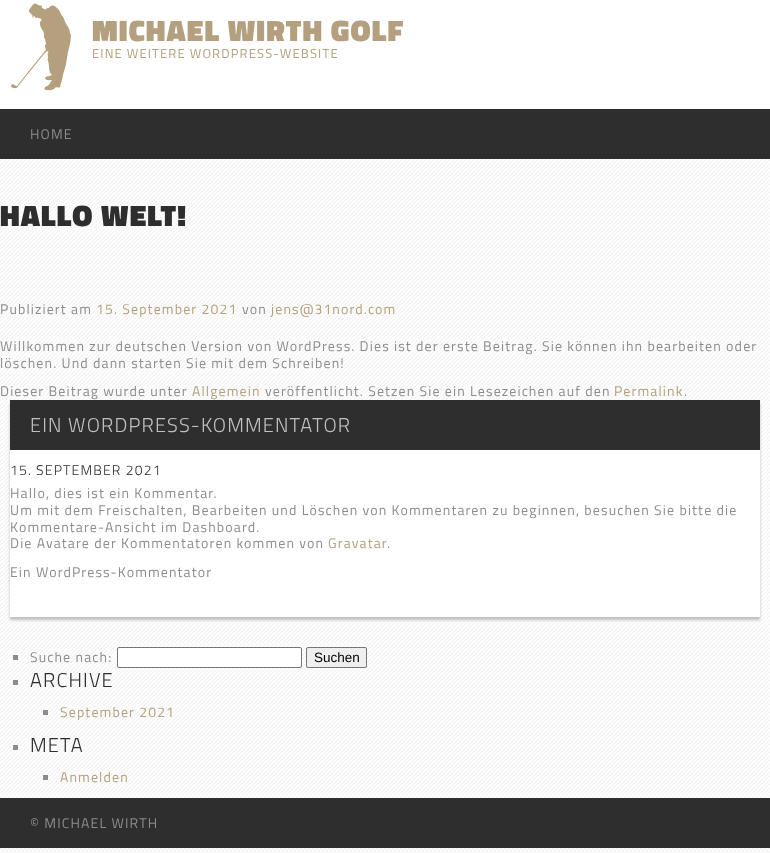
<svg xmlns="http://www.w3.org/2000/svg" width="770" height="853">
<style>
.a{font:900 30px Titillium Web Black;letter-spacing:1.12px;fill:#b4a07e}
.b{font:13px Titillium Web;letter-spacing:1.12px;fill:#b4a07e}
.c{font:14px Titillium Web;letter-spacing:1.12px;fill:#8c8c8c}
.d{font:900 30px Titillium Web Black;letter-spacing:1.12px;fill:#2e2e2e}
.e{font:14px Titillium Web;letter-spacing:1.12px;fill:#b4a07e}
.f{font:300 20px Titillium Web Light;letter-spacing:1.12px;fill:#c0c0c0}
.g{font:300 14px Titillium Web Light;letter-spacing:1.12px;fill:#2e2e2e}
.h{font:13.5px Liberation Sans;fill:#000}
.i{font:300 20px Titillium Web Light;letter-spacing:1.12px;fill:#2e2e2e}
</style>
<rect width="100%" height="100%" fill="#fff"/>
<image href="1.png" x="0" y="159" width="770" height="694"/>
<image href="2.png" x="11" y="3" width="60" height="88"/>
<path fill="#2e2e2e" d="M0 109h770v50H0z"/>
<path fill="#bebebe" filter="blur(1.5px)" d="M10 403h750v217H10z"/>
<path fill="#fff" d="M10 450h750v167H10z"/>
<path fill="#2e2e2e" d="M10 400h750v50H10z"/>
<path fill="#8c8c8c" d="M13 655h5v5H13z"/>
<rect fill="#fff" stroke="#767676" x="117.5" y="647.5" width="184" height="20" rx="1.5"/>
<rect fill="#efefef" stroke="#767676" x="306.5" y="647.5" width="60" height="20" rx="1.5"/>
<path fill="#8c8c8c" d="M13 680h5v5H13z"/>
<path fill="#8c8c8c" d="M43 710h5v5H43z"/>
<path fill="#8c8c8c" d="M13 745h5v5H13z"/>
<path fill="#8c8c8c" d="M43 775h5v5H43z"/>
<path fill="#2e2e2e" d="M0 798h770v50H0z"/>
<text class="a" x="92" y="41">MICHAEL WIRTH GOLF</text>
<text class="b" x="92" y="58">EINE WEITERE WORDPRESS-WEBSITE</text>
<text class="c" x="30" y="139">HOME</text>
<text class="d" x="0" y="226">HALLO WELT!</text>
<text class="c" x="0" y="314">Publiziert am</text>
<text class="e" x="96" y="314">15. September 2021</text>
<text class="c" x="242" y="314">von</text>
<text class="e" x="271" y="314">jens@31nord.com</text>
<text class="c" x="0" y="351">Willkommen zur deutschen Version von WordPress. Dies ist der erste Beitrag. Sie können ihn bearbeiten oder</text>
<text class="c" x="0" y="368">löschen. Und dann starten Sie mit dem Schreiben!</text>
<text class="c" x="0" y="396">Dieser Beitrag wurde unter</text>
<text class="e" x="192" y="396">Allgemein</text>
<text class="c" x="265" y="396">veröffentlicht. Setzen Sie ein Lesezeichen auf den</text>
<text class="e" x="614" y="396">Permalink</text>
<text class="c" x="684" y="396">.</text>
<text class="f" x="30" y="432">EIN WORDPRESS-KOMMENTATOR</text>
<text class="g" x="10" y="475">15. SEPTEMBER 2021</text>
<text class="c" x="10" y="498">Hallo, dies ist ein Kommentar.</text>
<text class="c" x="10" y="515">Um mit dem Freischalten, Bearbeiten und Löschen von Kommentaren zu beginnen, besuchen Sie bitte die</text>
<text class="c" x="10" y="532">Kommentare-Ansicht im Dashboard.</text>
<text class="c" x="10" y="548">Die Avatare der Kommentatoren kommen von</text>
<text class="e" x="328" y="548">Gravatar</text>
<text class="c" x="387" y="548">.</text>
<text class="c" x="10" y="577">Ein WordPress-Kommentator</text>
<text class="c" x="30" y="662">Suche nach:</text>
<text class="h" x="314" y="662">Suchen</text>
<text class="i" x="30" y="687">ARCHIVE</text>
<text class="e" x="60" y="717">September 2021</text>
<text class="i" x="30" y="752">META</text>
<text class="e" x="60" y="782">Anmelden</text>
<text class="c" x="30" y="828">© MICHAEL WIRTH</text>
</svg>
